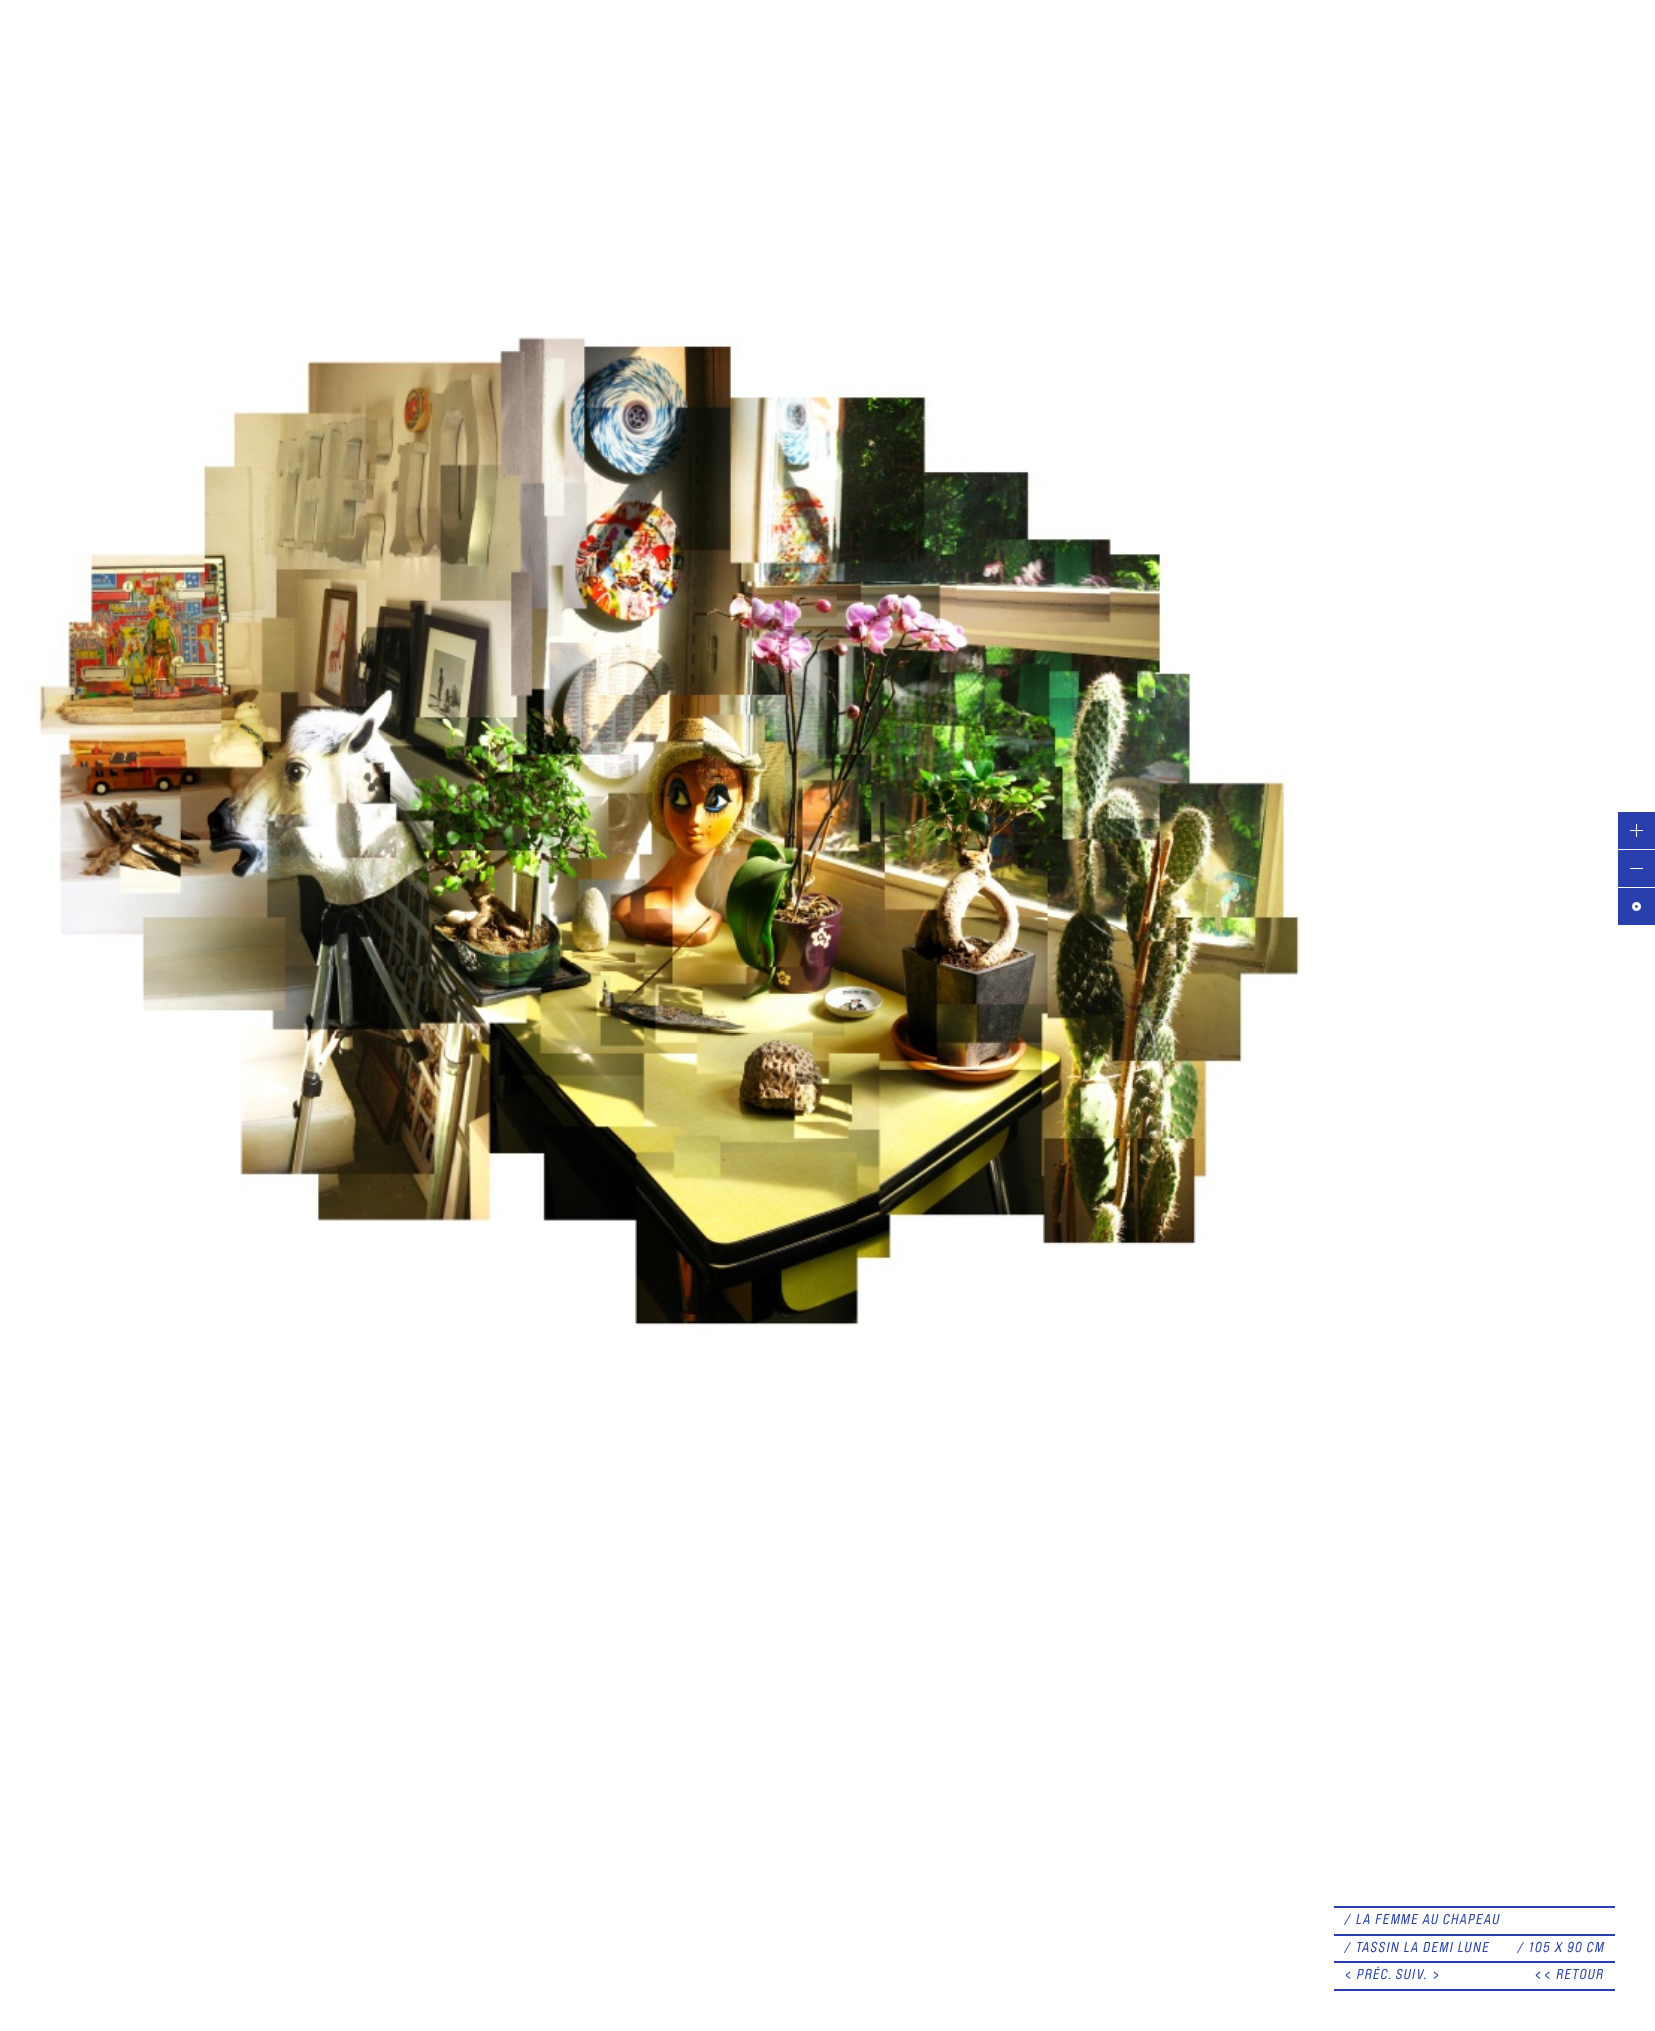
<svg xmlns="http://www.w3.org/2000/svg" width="1655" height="2031">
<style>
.a{font:italic 14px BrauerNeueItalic;letter-spacing:1.35px;fill:#293fae}
</style>
<rect width="100%" height="100%" fill="#fff"/>
<image href="12.png" x="1149" y="1032" width="94" height="213"/>
<image href="8.png" x="1149" y="647" width="152" height="386"/>
<image href="4.png" x="1149" y="552" width="21" height="98"/>
<image href="11.png" x="766" y="1029" width="384" height="298"/>
<image href="7.png" x="766" y="647" width="384" height="386"/>
<image href="3.png" x="766" y="385" width="384" height="265"/>
<image href="10.png" x="381" y="1029" width="386" height="310"/>
<image href="6.png" x="384" y="647" width="383" height="386"/>
<image href="2.png" x="381" y="337" width="386" height="313"/>
<image href="9.png" x="238" y="1032" width="146" height="190"/>
<image href="5.png" x="24" y="647" width="361" height="386"/>
<image href="1.png" x="60" y="360" width="324" height="290"/>
<image href="13.png" x="1618" y="812" width="37" height="37"/>
<image href="14.png" x="1618" y="850" width="37" height="37"/>
<image href="15.png" x="1618" y="888" width="37" height="37"/>
<path fill="#293fae" d="M1334 1989h281v2H1334z"/>
<path fill="#293fae" d="M1334 1906h281v2H1334z"/>
<path fill="#293fae" d="M1334 1934h281v2H1334z"/>
<path fill="#293fae" d="M1334 1961h281v2H1334z"/>
<text class="a" x="1344" y="1924">/ LA FEMME AU CHAPEAU</text>
<text class="a" x="1344" y="1952">/ TASSIN LA DEMI LUNE</text>
<text class="a" x="1517" y="1952">/ 105 X 90 CM</text>
<text class="a" x="1344" y="1979">&lt; PRÉC.</text>
<text class="a" x="1396" y="1979">SUIV. &gt;</text>
<text class="a" x="1534" y="1979">&lt;&lt; RETOUR</text>
</svg>
